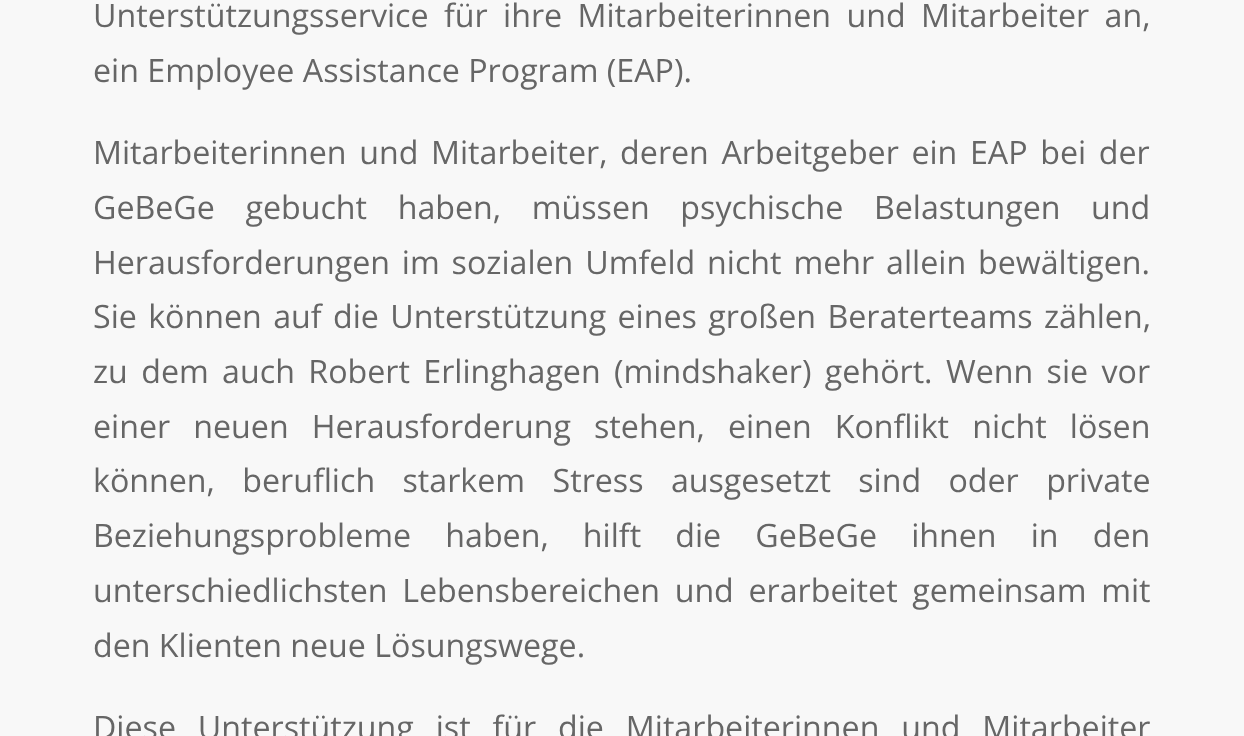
<svg xmlns="http://www.w3.org/2000/svg" width="1244" height="736">
<style>
.a{font:32.2px Open Sans;fill:#666}
</style>
<rect width="100%" height="100%" fill="#f8f8f8"/>
<text class="a" x="93" y="27" word-spacing="7">Unterstützungsservice für ihre Mitarbeiterinnen und Mitarbeiter an,</text>
<text class="a" x="93" y="82">ein Employee Assistance Program (EAP).</text>
<text class="a" x="93" y="164" word-spacing="4.25">Mitarbeiterinnen und Mitarbeiter, deren Arbeitgeber ein EAP bei der</text>
<text class="a" x="93" y="219" word-spacing="22.25">GeBeGe gebucht haben, müssen psychische Belastungen und</text>
<text class="a" x="93" y="274" word-spacing="3.5">Herausforderungen im sozialen Umfeld nicht mehr allein bewältigen.</text>
<text class="a" x="93" y="328" word-spacing="3">Sie können auf die Unterstützung eines großen Beraterteams zählen,</text>
<text class="a" x="93" y="383" word-spacing="5">zu dem auch Robert Erlinghagen (mindshaker) gehört. Wenn sie vor</text>
<text class="a" x="93" y="438" word-spacing="14.75">einer neuen Herausforderung stehen, einen Konflikt nicht lösen</text>
<text class="a" x="93" y="492" word-spacing="19">können, beruflich starkem Stress ausgesetzt sind oder private</text>
<text class="a" x="93" y="547" word-spacing="25.75">Beziehungsprobleme haben, hilft die GeBeGe ihnen in den</text>
<text class="a" x="93" y="602" word-spacing="6.25">unterschiedlichsten Lebensbereichen und erarbeitet gemeinsam mit</text>
<text class="a" x="93" y="657">den Klienten neue Lösungswege.</text>
<text class="a" x="93" y="739" word-spacing="13.5">Diese Unterstützung ist für die Mitarbeiterinnen und Mitarbeiter</text>
</svg>
